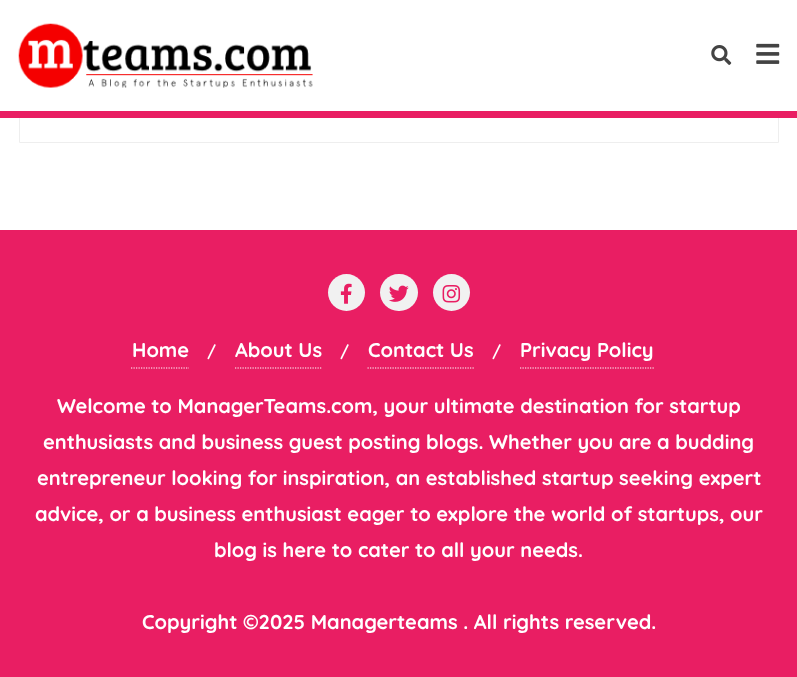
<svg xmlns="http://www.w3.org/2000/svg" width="797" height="677">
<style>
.a{font:bold 20px Quicksand;fill:#fff}
.b{font:bold 16px Quicksand;fill:#fff}
</style>
<rect width="100%" height="100%" fill="#fff"/>
<path fill="none" stroke="#eee" d="M19.5 -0.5h759v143H19.5z"/>
<path fill="#fff" d="M19 0h760v111H19z"/>
<image href="1.png" x="18" y="23" width="295" height="65"/>
<image href="2.png" x="711" y="45" width="21" height="20"/>
<image href="3.png" x="756" y="43" width="24" height="21"/>
<path fill="#e91e63" d="M0 111h797v7H0z"/>
<path fill="#e91e63" d="M0 230h797v447H0z"/>
<circle fill="#f1f1f1" cx="346.5" cy="292.5" r="18.5"/>
<image href="4.png" x="340" y="283" width="12" height="21"/>
<rect fill="#f1f1f1" x="380" y="274" width="38" height="37" rx="18.5"/>
<image href="5.png" x="389" y="285" width="20" height="17"/>
<circle fill="#f1f1f1" cx="451.5" cy="292.5" r="18.5"/>
<image href="6.png" x="442" y="285" width="19" height="18"/>
<path fill="none" stroke="#fff" stroke-width="1.2" stroke-dasharray="1.25 1.25" d="M131 368h58"/>
<path fill="none" stroke="#fff" stroke-width="1.2" stroke-dasharray="1.25 1.25" d="M235 368h87.5"/>
<path fill="none" stroke="#fff" stroke-width="1.2" stroke-dasharray="1.25 1.25" d="M367.5 368h106.5"/>
<path fill="none" stroke="#fff" stroke-width="1.2" stroke-dasharray="1.25 1.25" d="M520 368h134"/>
<text class="a" x="132" y="357">Home</text>
<text class="b" x="207" y="357">/</text>
<text class="a" x="235" y="357">About Us</text>
<text class="b" x="340" y="357">/</text>
<text class="a" x="368" y="357">Contact Us</text>
<text class="b" x="492" y="357">/</text>
<text class="a" x="520" y="357">Privacy Policy</text>
<text class="a" x="57" y="413">Welcome to ManagerTeams.com, your ultimate destination for startup</text>
<text class="a" x="43" y="449">enthusiasts and business guest posting blogs. Whether you are a budding</text>
<text class="a" x="37" y="485">entrepreneur looking for inspiration, an established startup seeking expert</text>
<text class="a" x="35" y="521">advice, or a business enthusiast eager to explore the world of startups, our</text>
<text class="a" x="214" y="557">blog is here to cater to all your needs.</text>
<text class="a" x="142" y="629">Copyright ©2025 Managerteams . All rights reserved.</text>
</svg>
